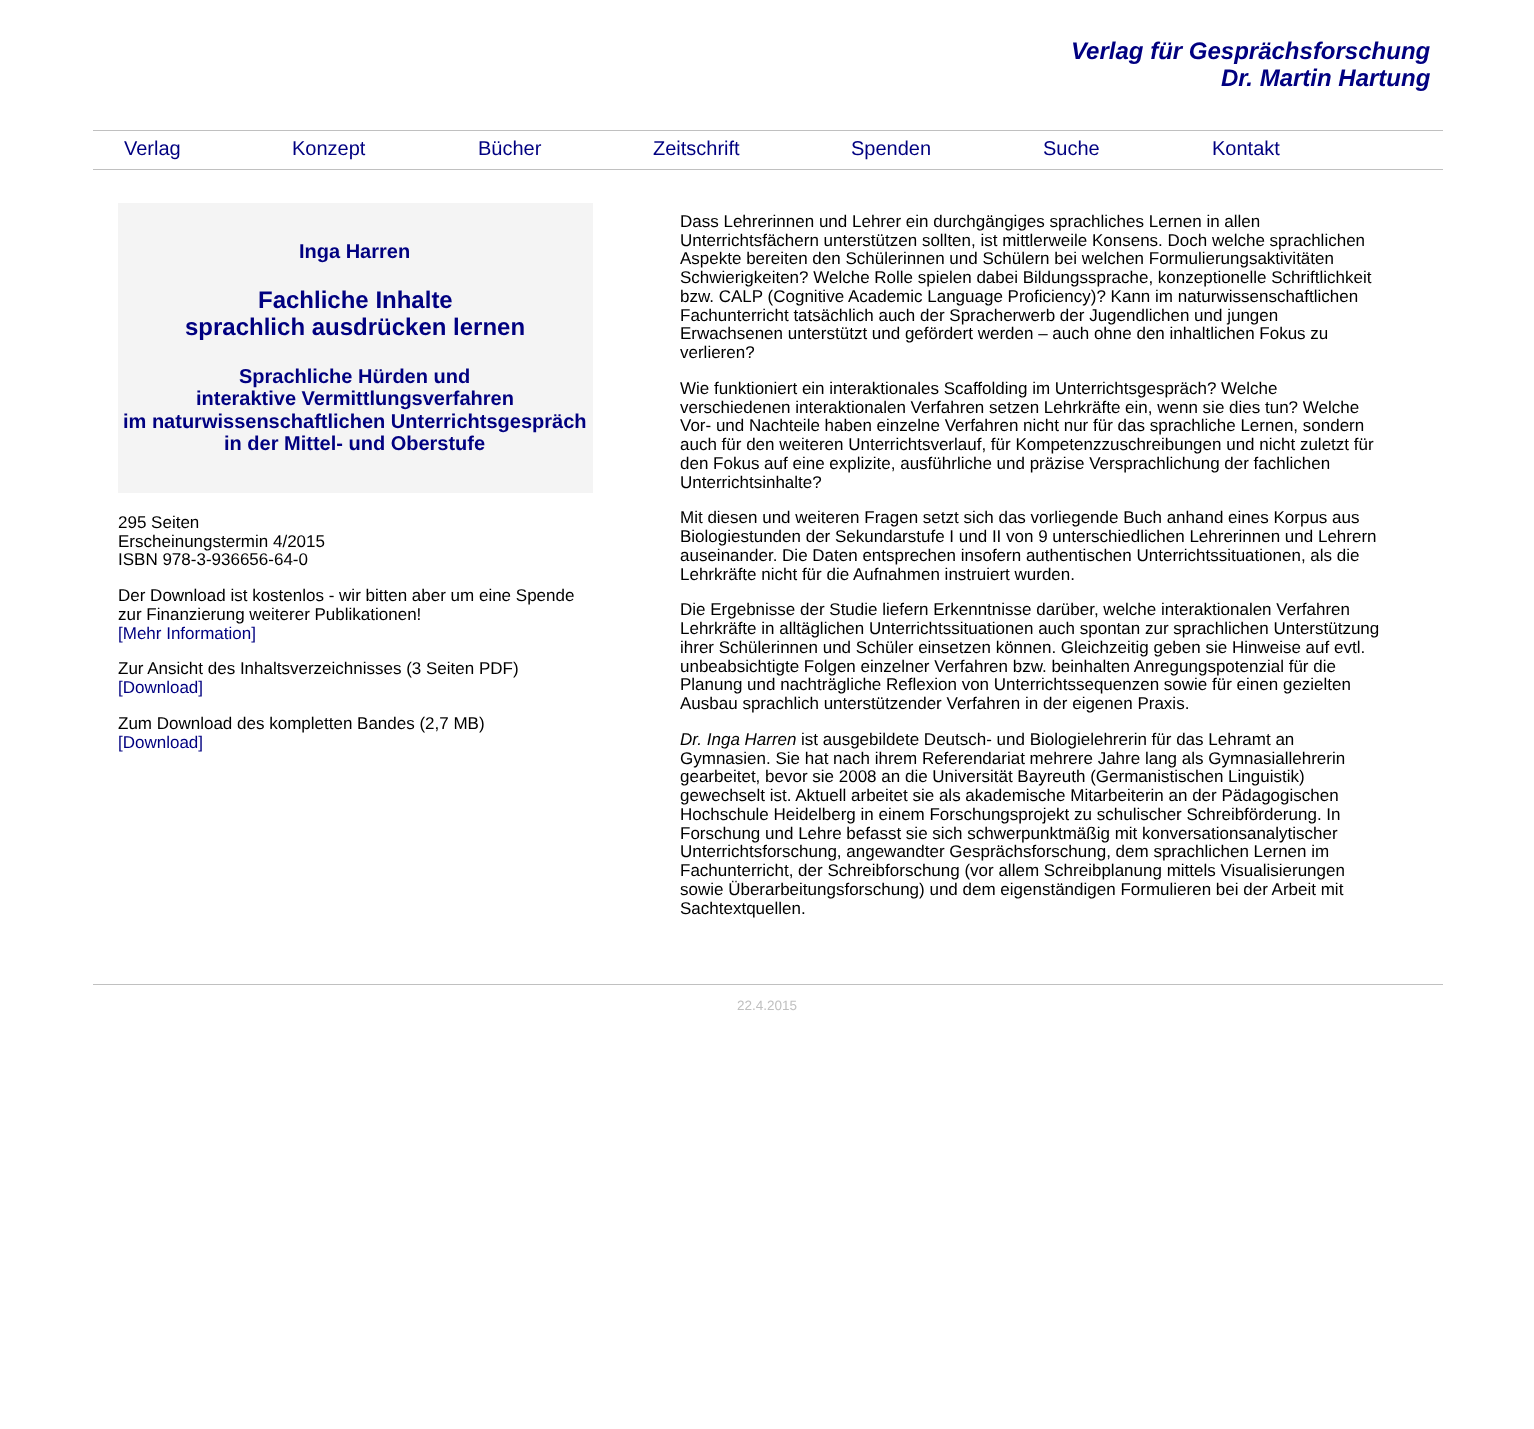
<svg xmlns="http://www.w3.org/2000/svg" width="1534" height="1429">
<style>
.a{font:italic bold 24px Liberation Sans;fill:#000080}
.b{font:20px Liberation Sans;fill:#000080}
.c{font:bold 20px Liberation Sans;fill:#000080}
.d{font:bold 24px Liberation Sans;fill:#000080}
.e{font:17px Liberation Sans;fill:#000}
.f{font:17px Liberation Sans;fill:#000080}
.g{font:italic 17px Liberation Sans;fill:#000}
.h{font:13.5px Liberation Sans;fill:#c0c0c0}
</style>
<rect width="100%" height="100%" fill="#fff"/>
<path fill="#c0c0c0" d="M93 130h1350v1H93z"/>
<path fill="#c0c0c0" d="M93 169h1350v1H93z"/>
<path fill="#f4f4f4" d="M118 203h475v290H118z"/>
<path fill="#c0c0c0" d="M93 984h1350v1H93z"/>
<text class="a" x="1071" y="59">Verlag für Gesprächsforschung</text>
<text class="a" x="1221" y="86">Dr. Martin Hartung</text>
<text class="b" x="124" y="155">Verlag</text>
<text class="b" x="292" y="155">Konzept</text>
<text class="b" x="478" y="155">Bücher</text>
<text class="b" x="653" y="155">Zeitschrift</text>
<text class="b" x="851" y="155">Spenden</text>
<text class="b" x="1043" y="155">Suche</text>
<text class="b" x="1212" y="155">Kontakt</text>
<text class="c" x="299" y="258">Inga Harren</text>
<text class="d" x="258" y="308">Fachliche Inhalte</text>
<text class="d" x="185" y="335">sprachlich ausdrücken lernen</text>
<text class="c" x="239" y="383">Sprachliche Hürden und</text>
<text class="c" x="196" y="405">interaktive Vermittlungsverfahren</text>
<text class="c" x="123" y="428">im naturwissenschaftlichen Unterrichtsgespräch</text>
<text class="c" x="224" y="450">in der Mittel- und Oberstufe</text>
<text class="e" x="118" y="528">295 Seiten</text>
<text class="e" x="118" y="547">Erscheinungstermin 4/2015</text>
<text class="e" x="118" y="565">ISBN 978-3-936656-64-0</text>
<text class="e" x="118" y="601">Der Download ist kostenlos - wir bitten aber um eine Spende</text>
<text class="e" x="118" y="620">zur Finanzierung weiterer Publikationen!</text>
<text class="f" x="118" y="639">[Mehr Information]</text>
<text class="e" x="118" y="674">Zur Ansicht des Inhaltsverzeichnisses (3 Seiten PDF)</text>
<text class="f" x="118" y="693">[Download]</text>
<text class="e" x="118" y="729">Zum Download des kompletten Bandes (2,7 MB)</text>
<text class="f" x="118" y="748">[Download]</text>
<text class="e" x="680" y="227">Dass Lehrerinnen und Lehrer ein durchgängiges sprachliches Lernen in allen</text>
<text class="e" x="680" y="246">Unterrichtsfächern unterstützen sollten, ist mittlerweile Konsens. Doch welche sprachlichen</text>
<text class="e" x="680" y="264">Aspekte bereiten den Schülerinnen und Schülern bei welchen Formulierungsaktivitäten</text>
<text class="e" x="680" y="283">Schwierigkeiten? Welche Rolle spielen dabei Bildungssprache, konzeptionelle Schriftlichkeit</text>
<text class="e" x="680" y="302">bzw. CALP (Cognitive Academic Language Proficiency)? Kann im naturwissenschaftlichen</text>
<text class="e" x="680" y="321">Fachunterricht tatsächlich auch der Spracherwerb der Jugendlichen und jungen</text>
<text class="e" x="680" y="339">Erwachsenen unterstützt und gefördert werden – auch ohne den inhaltlichen Fokus zu</text>
<text class="e" x="680" y="358">verlieren?</text>
<text class="e" x="680" y="394">Wie funktioniert ein interaktionales Scaffolding im Unterrichtsgespräch? Welche</text>
<text class="e" x="680" y="413">verschiedenen interaktionalen Verfahren setzen Lehrkräfte ein, wenn sie dies tun? Welche</text>
<text class="e" x="680" y="431">Vor- und Nachteile haben einzelne Verfahren nicht nur für das sprachliche Lernen, sondern</text>
<text class="e" x="680" y="450">auch für den weiteren Unterrichtsverlauf, für Kompetenzzuschreibungen und nicht zuletzt für</text>
<text class="e" x="680" y="469">den Fokus auf eine explizite, ausführliche und präzise Versprachlichung der fachlichen</text>
<text class="e" x="680" y="488">Unterrichtsinhalte?</text>
<text class="e" x="680" y="523">Mit diesen und weiteren Fragen setzt sich das vorliegende Buch anhand eines Korpus aus</text>
<text class="e" x="680" y="542">Biologiestunden der Sekundarstufe I und II von 9 unterschiedlichen Lehrerinnen und Lehrern</text>
<text class="e" x="680" y="561">auseinander. Die Daten entsprechen insofern authentischen Unterrichtssituationen, als die</text>
<text class="e" x="680" y="580">Lehrkräfte nicht für die Aufnahmen instruiert wurden.</text>
<text class="e" x="680" y="615">Die Ergebnisse der Studie liefern Erkenntnisse darüber, welche interaktionalen Verfahren</text>
<text class="e" x="680" y="634">Lehrkräfte in alltäglichen Unterrichtssituationen auch spontan zur sprachlichen Unterstützung</text>
<text class="e" x="680" y="653">ihrer Schülerinnen und Schüler einsetzen können. Gleichzeitig geben sie Hinweise auf evtl.</text>
<text class="e" x="680" y="672">unbeabsichtigte Folgen einzelner Verfahren bzw. beinhalten Anregungspotenzial für die</text>
<text class="e" x="680" y="690">Planung und nachträgliche Reflexion von Unterrichtssequenzen sowie für einen gezielten</text>
<text class="e" x="680" y="709">Ausbau sprachlich unterstützender Verfahren in der eigenen Praxis.</text>
<text class="g" x="680" y="745">Dr. Inga Harren</text>
<text class="e" x="801" y="745">ist ausgebildete Deutsch- und Biologielehrerin für das Lehramt an</text>
<text class="e" x="680" y="764">Gymnasien. Sie hat nach ihrem Referendariat mehrere Jahre lang als Gymnasiallehrerin</text>
<text class="e" x="680" y="782">gearbeitet, bevor sie 2008 an die Universität Bayreuth (Germanistischen Linguistik)</text>
<text class="e" x="680" y="801">gewechselt ist. Aktuell arbeitet sie als akademische Mitarbeiterin an der Pädagogischen</text>
<text class="e" x="680" y="820">Hochschule Heidelberg in einem Forschungsprojekt zu schulischer Schreibförderung. In</text>
<text class="e" x="680" y="839">Forschung und Lehre befasst sie sich schwerpunktmäßig mit konversationsanalytischer</text>
<text class="e" x="680" y="857">Unterrichtsforschung, angewandter Gesprächsforschung, dem sprachlichen Lernen im</text>
<text class="e" x="680" y="876">Fachunterricht, der Schreibforschung (vor allem Schreibplanung mittels Visualisierungen</text>
<text class="e" x="680" y="895">sowie Überarbeitungsforschung) und dem eigenständigen Formulieren bei der Arbeit mit</text>
<text class="e" x="680" y="914">Sachtextquellen.</text>
<text class="h" x="737" y="1010">22.4.2015</text>
</svg>
